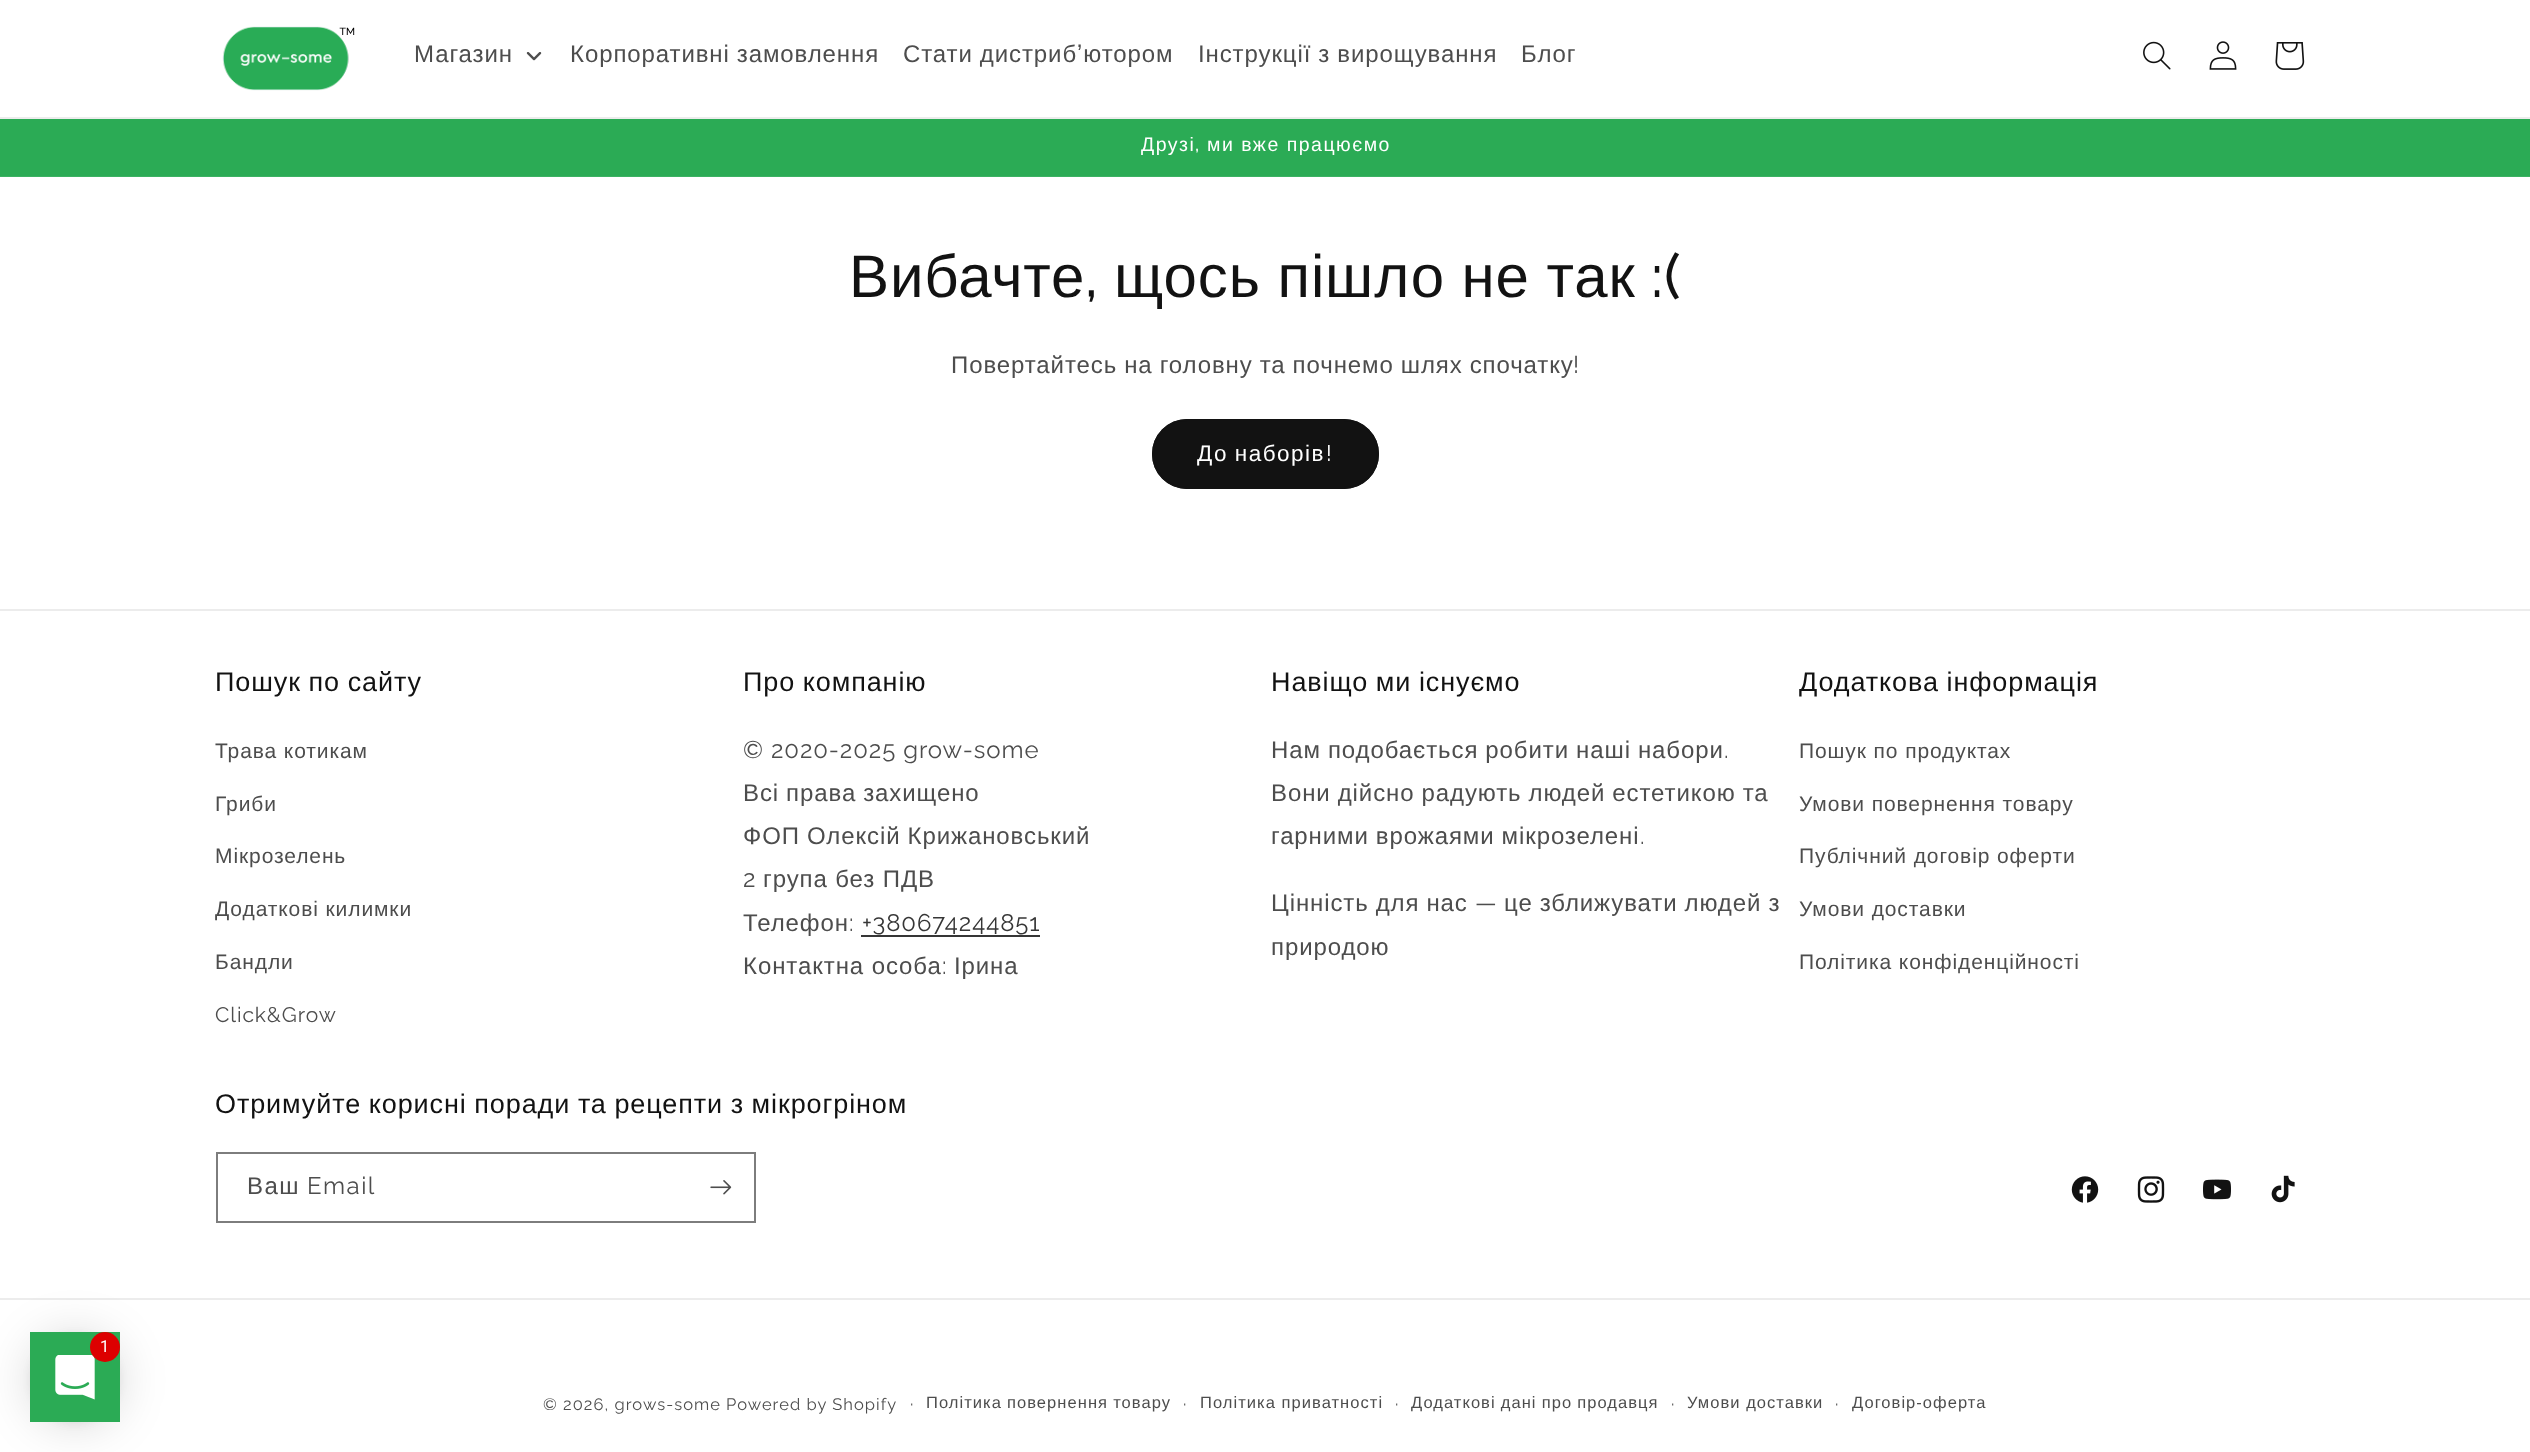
<svg xmlns="http://www.w3.org/2000/svg" width="2530" height="1452">
<style>
.a{font:24px Liberation Sans;letter-spacing:0.9px;fill:#4d4d4d}
.b{font:19.5px Liberation Sans;letter-spacing:1.5px;fill:#fff}
.c{font:500 19.5px Raleway;letter-spacing:1.5px;fill:#fff}
.d{font:60px Liberation Sans;letter-spacing:0.9px;fill:#121212}
.e{font:500 60px Raleway;letter-spacing:0.9px;fill:#121212}
.f{font:24px Raleway;letter-spacing:0.9px;fill:#4d4d4d}
.g{font:22.5px Liberation Sans;letter-spacing:1.5px;fill:#fff}
.h{font:22.5px Raleway;letter-spacing:1.5px;fill:#fff}
.i{font:16.5px Roboto;letter-spacing:0.9px;fill:#fff}
.j{font:27px Liberation Sans;letter-spacing:0.9px;fill:#121212}
.k{font:21px Liberation Sans;letter-spacing:0.9px;fill:#4d4d4d}
.l{font:21px Raleway;letter-spacing:0.9px;fill:#4d4d4d}
.m{font:24px Raleway;letter-spacing:0.9px;fill:#363636}
.n{font:24px Liberation Sans;letter-spacing:1.5px;fill:#4d4d4d}
.o{font:24px Raleway;letter-spacing:1.5px;fill:#4d4d4d}
.p{font:16.5px Raleway;letter-spacing:1.05px;fill:#4d4d4d}
.q{font:18px Raleway;letter-spacing:1.05px;fill:#4d4d4d}
.r{font:16.5px Liberation Sans;letter-spacing:1.05px;fill:#4d4d4d}
</style>
<rect width="100%" height="100%" fill="#fff"/>
<path fill="#ececec" d="M0 117h2530v2H0z"/>
<image href="1.png" x="222" y="26" width="133" height="65"/>
<image href="2.png" x="526" y="52" width="16" height="9"/>
<image href="3.png" x="2143" y="41" width="28" height="29"/>
<image href="4.png" x="2209" y="41" width="28" height="29"/>
<image href="5.png" x="2275" y="42" width="30" height="28"/>
<path fill="#2bab55" d="M0 119h2530v57H0z"/>
<path fill="#3cb263" d="M0 176h2530v1H0z"/>
<rect fill="#121212" x="1152" y="419" width="227" height="70" rx="35"/>
<rect fill="none" stroke="#121212" stroke-width="2" x="1153" y="420" width="225" height="68" rx="34"/>
<path fill="#ececec" d="M0 1298h2530v2H0z"/>
<rect fill="#00000029" filter="blur(24px)" x="30" y="1335" width="90" height="90" rx="45"/>
<rect fill="#0000000f" filter="blur(4.5px)" x="30" y="1334" width="90" height="90" rx="45"/>
<path fill="#2bab55" d="M30 1332h90v90H30z"/>
<image href="6.png" x="55" y="1355" width="40" height="45"/>
<circle fill="#d00" cx="105" cy="1347" r="15"/>
<path fill="#ececec" d="M0 609h2530v2H0z"/>
<path fill="#363636" d="M861 935h179v2H861z"/>
<path fill="none" stroke="#7d7d7d" stroke-width="2" d="M217 1153h538v69H217z"/>
<image href="7.png" x="710" y="1180" width="22" height="15"/>
<image href="8.png" x="2071" y="1176" width="28" height="27"/>
<image href="9.png" x="2137" y="1176" width="28" height="27"/>
<image href="10.png" x="2203" y="1179" width="28" height="21"/>
<image href="11.png" x="2271" y="1175" width="24" height="28"/>
<text class="a" x="414" y="62">Магазин</text>
<text class="a" x="570" y="62" word-spacing="-0.5">Корпоративні замовлення</text>
<text class="a" x="903" y="62" word-spacing="-0.5">Стати дистрибʼютором</text>
<text class="a" x="1198" y="62" word-spacing="-0.5">Інструкції з вирощування</text>
<text class="a" x="1521" y="62">Блог</text>
<text class="b" x="1141" y="151">Друзі</text>
<text class="c" x="1195" y="151">,</text>
<text class="b" x="1207" y="151">ми вже працюємо</text>
<text class="d" x="849" y="297">Вибачте</text>
<text class="e" x="1085" y="297">,</text>
<text class="d" x="1114" y="297" word-spacing="-1">щось пішло не так</text>
<text class="e" x="1651" y="297">:(</text>
<text class="a" x="951" y="373" word-spacing="-0.5">Повертайтесь на головну та почнемо шлях спочатку</text>
<text class="f" x="1573" y="373">!</text>
<text class="g" x="1197" y="461" word-spacing="-1">До наборів</text>
<text class="h" x="1326" y="461">!</text>
<text class="i" x="100" y="1352">1</text>
<text class="j" x="215" y="691" word-spacing="-0.75">Пошук по сайту</text>
<text class="k" x="215" y="758">Трава котикам</text>
<text class="k" x="215" y="811">Гриби</text>
<text class="k" x="215" y="863">Мікрозелень</text>
<text class="k" x="215" y="916">Додаткові килимки</text>
<text class="k" x="215" y="969">Бандли</text>
<text class="l" x="215" y="1022">Click&amp;Grow</text>
<text class="j" x="743" y="691" word-spacing="-0.75">Про компанію</text>
<text class="f" x="743" y="758">© 2020-2025 grow-some</text>
<text class="a" x="743" y="801" word-spacing="-0.5">Всі права захищено</text>
<text class="a" x="743" y="844" word-spacing="-0.5">ФОП Олексій Крижановський</text>
<text class="f" x="743" y="887">2</text>
<text class="a" x="763" y="887">група без ПДВ</text>
<text class="a" x="743" y="931">Телефон</text>
<text class="f" x="849" y="931">:</text>
<text class="m" x="862" y="931">+380674244851</text>
<text class="a" x="743" y="974">Контактна особа</text>
<text class="f" x="942" y="974">:</text>
<text class="a" x="954" y="974">Ірина</text>
<text class="j" x="1271" y="691" word-spacing="-0.75">Навіщо ми існуємо</text>
<text class="a" x="1271" y="758" word-spacing="-0.5">Нам подобається робити наші набори</text>
<text class="f" x="1724" y="758">.</text>
<text class="a" x="1271" y="801" word-spacing="-0.5">Вони дійсно радують людей естетикою та</text>
<text class="a" x="1271" y="844" word-spacing="-0.5">гарними врожаями мікрозелені</text>
<text class="f" x="1640" y="844">.</text>
<text class="a" x="1271" y="911" word-spacing="-0.5">Цінність для нас</text>
<text class="f" x="1475" y="911">—</text>
<text class="a" x="1504" y="911" word-spacing="-0.5">це зближувати людей з</text>
<text class="a" x="1271" y="955">природою</text>
<text class="j" x="1799" y="691" word-spacing="-0.75">Додаткова інформація</text>
<text class="k" x="1799" y="758">Пошук по продуктах</text>
<text class="k" x="1799" y="811">Умови повернення товару</text>
<text class="k" x="1799" y="863">Публічний договір оферти</text>
<text class="k" x="1799" y="916">Умови доставки</text>
<text class="k" x="1799" y="969">Політика конфіденційності</text>
<text class="j" x="215" y="1113" word-spacing="-0.75">Отримуйте корисні поради та рецепти з мікрогріном</text>
<text class="n" x="247" y="1194">Ваш</text>
<text class="o" x="307" y="1194">Email</text>
<text class="p" x="543" y="1410">© 2026, grows-some</text>
<text class="p" x="726" y="1410">Powered by Shopify</text>
<text class="q" x="910" y="1410">·</text>
<text class="r" x="926" y="1408" word-spacing="-0.5">Політика повернення товару</text>
<text class="q" x="1183" y="1410">·</text>
<text class="r" x="1200" y="1408">Політика приватності</text>
<text class="q" x="1395" y="1410">·</text>
<text class="r" x="1411" y="1408" word-spacing="-0.5">Додаткові дані про продавця</text>
<text class="q" x="1671" y="1410">·</text>
<text class="r" x="1687" y="1408">Умови доставки</text>
<text class="q" x="1835" y="1410">·</text>
<text class="r" x="1852" y="1408">Договір-оферта</text>
</svg>
